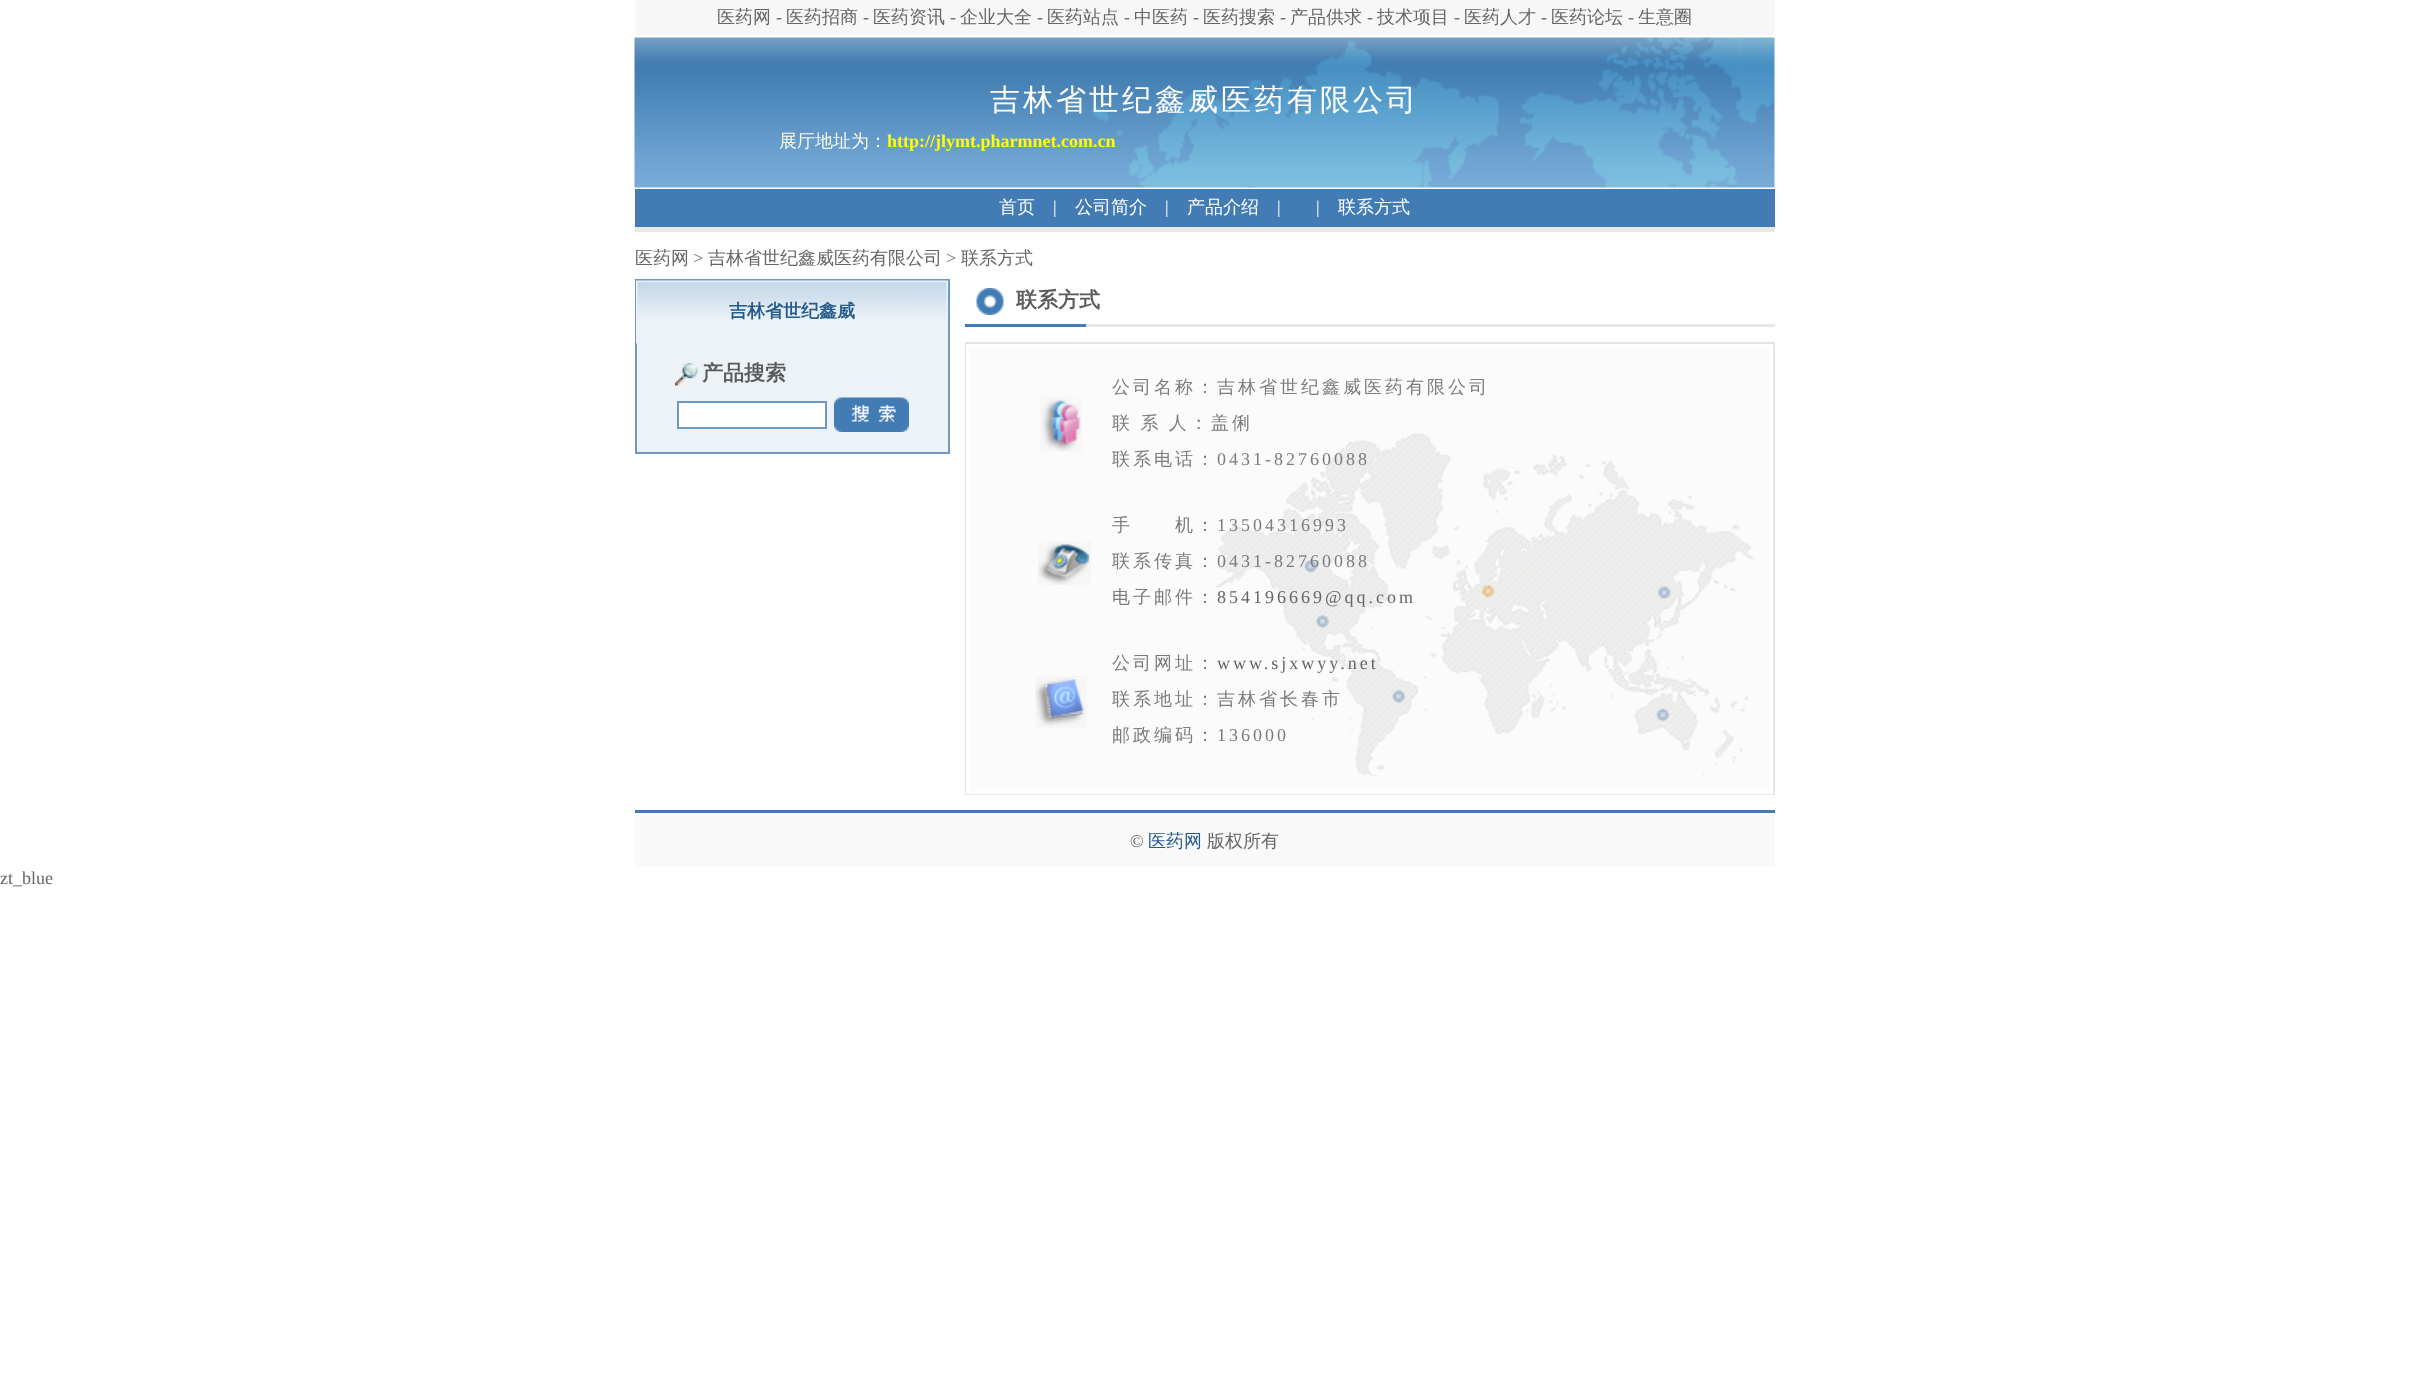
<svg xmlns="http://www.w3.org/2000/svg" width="2409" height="1397">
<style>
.a{font:500 18px WenQuanYi Zen Hei;fill:#666}
.b{font:18px Liberation Serif;fill:#666}
.c{font:500 30px WenQuanYi Zen Hei;letter-spacing:3px;fill:#fff}
.d{font:500 18px WenQuanYi Zen Hei;fill:#f7fae9}
.e{font:bold 18px Liberation Serif;fill:#ff0}
.f{font:500 18px WenQuanYi Zen Hei;fill:#fff}
.g{font:18px Liberation Serif;fill:#fff}
.h{font:bold 18px WenQuanYi Zen Hei;fill:#265c8b}
.i{font:bold 21px WenQuanYi Zen Hei;fill:#5b5b5b}
.j{font:500 18px WenQuanYi Zen Hei;letter-spacing:3px;fill:#7c7c7c}
.k{font:18px Liberation Serif;letter-spacing:3px;fill:#7c7c7c}
.l{font:18px Liberation Serif;letter-spacing:3px;fill:#666}
.m{font:500 18px WenQuanYi Zen Hei;fill:#265c8b}
</style>
<rect width="100%" height="100%" fill="#fff"/>
<path fill="#f7f7f7" d="M635 0h1140v35H635z"/>
<image href="1.png" x="634" y="37" width="1141" height="151"/>
<path fill="#437cb4" d="M635 189h1140v38H635z"/>
<path fill="#eae7e3" d="M635 227h1140v5H635z"/>
<path fill="#edf2f7" d="M637 343h311v109H637z"/>
<path fill="#6c9ac8" d="M948 279h2v174H948z"/>
<path fill="#6c9ac8" d="M635 452h315v2H635z"/>
<path fill="#6c9ac8" d="M635 279h2v174H635z"/>
<image href="2.png" x="636" y="279" width="312" height="65"/>
<image href="3.png" x="675" y="363" width="23" height="23"/>
<path fill="#fff" stroke="#6c9ac8" stroke-width="2" d="M678 402h148v26H678z"/>
<image href="4.png" x="834" y="397" width="75" height="35"/>
<image href="5.png" x="976" y="288" width="28" height="27"/>
<path fill="#437cb4" d="M965 324h121v3H965z"/>
<path fill="#e7e7e7" d="M1086 324h689v3H1086z"/>
<path fill="#e5e5e5" d="M965 342h810v453H965z"/>
<path fill="#fbfbfb" d="M969 347h801v444H969z"/>
<image href="6.png" x="1216" y="433" width="538" height="344"/>
<path fill="none" stroke="#fff" stroke-width="3" d="M967.5 345.5h804v447H967.5z"/>
<image href="7.png" x="1040" y="397" width="42" height="55"/>
<image href="8.png" x="1038" y="541" width="53" height="44"/>
<image href="9.png" x="1035" y="676" width="52" height="52"/>
<path fill="#437cb4" d="M635 810h1140v3H635z"/>
<path fill="#f9f9f9" d="M635 815h1140v52H635z"/>
<text class="a" x="717" y="23">医药网</text>
<text class="b" x="776" y="23">-</text>
<text class="a" x="786" y="23">医药招商</text>
<text class="b" x="863" y="23">-</text>
<text class="a" x="873" y="23">医药资讯</text>
<text class="b" x="950" y="23">-</text>
<text class="a" x="960" y="23">企业大全</text>
<text class="b" x="1037" y="23">-</text>
<text class="a" x="1047" y="23">医药站点</text>
<text class="b" x="1124" y="23">-</text>
<text class="a" x="1134" y="23">中医药</text>
<text class="b" x="1193" y="23">-</text>
<text class="a" x="1203" y="23">医药搜索</text>
<text class="b" x="1280" y="23">-</text>
<text class="a" x="1290" y="23">产品供求</text>
<text class="b" x="1367" y="23">-</text>
<text class="a" x="1377" y="23">技术项目</text>
<text class="b" x="1454" y="23">-</text>
<text class="a" x="1464" y="23">医药人才</text>
<text class="b" x="1541" y="23">-</text>
<text class="a" x="1551" y="23">医药论坛</text>
<text class="b" x="1628" y="23">-</text>
<text class="a" x="1638" y="23">生意圈</text>
<text class="c" x="990" y="110">吉林省世纪鑫威医药有限公司</text>
<text class="d" x="779" y="147">展厅地址为：</text>
<text class="e" x="887" y="147">http://jlymt.pharmnet.com.cn</text>
<text class="f" x="999" y="213">首页</text>
<text class="g" x="1053" y="213">|</text>
<text class="f" x="1075" y="213">公司简介</text>
<text class="g" x="1165" y="213">|</text>
<text class="f" x="1187" y="213">产品介绍</text>
<text class="g" x="1277" y="213">|</text>
<text class="g" x="1316" y="213">|</text>
<text class="f" x="1338" y="213">联系方式</text>
<text class="a" x="635" y="264">医药网</text>
<text class="b" x="693" y="264">&gt;</text>
<text class="a" x="708" y="264">吉林省世纪鑫威医药有限公司</text>
<text class="b" x="946" y="264">&gt;</text>
<text class="a" x="961" y="264">联系方式</text>
<text class="h" x="729" y="317">吉林省世纪鑫威</text>
<text class="i" x="702" y="380">产品搜索</text>
<text class="i" x="1016" y="307">联系方式</text>
<text class="j" x="1112" y="393">公司名称：吉林省世纪鑫威医药有限公司</text>
<text class="j" x="1112" y="429" word-spacing="-1">联 系 人：盖俐</text>
<text class="j" x="1112" y="465">联系电话：</text>
<text class="k" x="1217" y="465">0431-82760088</text>
<text class="j" x="1112" y="531">手　　机：</text>
<text class="k" x="1217" y="531">13504316993</text>
<text class="j" x="1112" y="567">联系传真：</text>
<text class="k" x="1217" y="567">0431-82760088</text>
<text class="j" x="1112" y="603">电子邮件：</text>
<text class="l" x="1217" y="603">854196669@qq.com</text>
<text class="j" x="1112" y="669">公司网址：</text>
<text class="l" x="1217" y="669">www.sjxwyy.net</text>
<text class="j" x="1112" y="705">联系地址：吉林省长春市</text>
<text class="j" x="1112" y="741">邮政编码：</text>
<text class="k" x="1217" y="741">136000</text>
<text class="b" x="1130" y="847">©</text>
<text class="m" x="1148" y="847">医药网</text>
<text class="a" x="1207" y="847">版权所有</text>
<text class="b" x="0" y="884">zt_blue</text>
</svg>
